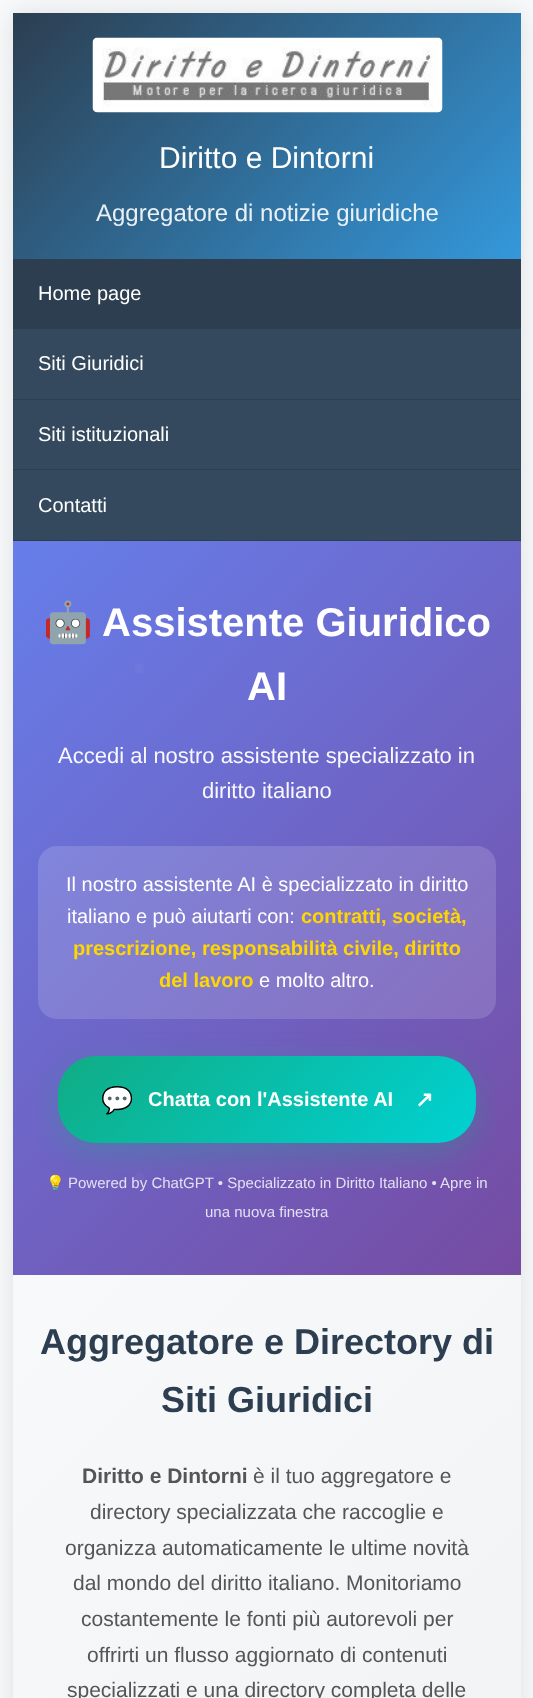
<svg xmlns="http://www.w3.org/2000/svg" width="533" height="1698">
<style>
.a{font:30px Liberation Sans;fill:#fff}
.b{font:24px Liberation Sans;fill:#eaf1f6}
.c{font:20px Liberation Sans;fill:#fff}
.d{font:bold 40px Noto Color Emoji;fill:#fff}
.e{font:bold 40px Liberation Sans;fill:#fff}
.f{font:22px Liberation Sans;fill:#f8f8fd}
.g{font:bold 20px Liberation Sans;fill:#ffd700}
.h{font:bold 26px Noto Color Emoji;fill:#fff}
.i{font:bold 20px Liberation Sans;fill:#fff}
.j{font:bold 22px DejaVu Sans;fill:#fff}
.k{font:15px Noto Color Emoji;fill:#e2e0f3}
.l{font:15px Liberation Sans;fill:#e2e0f3}
.m{font:bold 36px Liberation Sans;fill:#2c3e50}
.n{font:bold 21px Liberation Sans;fill:#555}
.o{font:21px Liberation Sans;fill:#555}
</style>
<defs>
<linearGradient id="g1" gradientUnits="userSpaceOnUse" x1="78" y1="-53" x2="456" y2="324"><stop offset="0" stop-color="#2c3e50"/><stop offset="1" stop-color="#3498db"/></linearGradient>
<linearGradient id="g2" gradientUnits="userSpaceOnUse" x1="-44" y1="598" x2="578" y2="1219"><stop offset="0" stop-color="#667eea"/><stop offset="1" stop-color="#764ba2"/></linearGradient>
<clipPath id="clip1"><path d="M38 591h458v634H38z"/></clipPath>
<linearGradient id="g3" gradientUnits="userSpaceOnUse" x1="141" y1="973" x2="393" y2="1226"><stop offset="0" stop-color="#10ac84"/><stop offset="1" stop-color="#00d2d3"/></linearGradient>
<linearGradient id="g4" gradientUnits="userSpaceOnUse" x1="-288" y1="1576" x2="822" y2="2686"><stop offset="0" stop-color="#f8f9fa"/><stop offset="1" stop-color="#e9ecef"/></linearGradient>
</defs>
<rect width="100%" height="100%" fill="#f8f9fa"/>
<path fill="#0000001a" filter="blur(12.5px)" d="M13 13h508v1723H13z"/>
<path fill="url(#g1)" d="M13 13h508v246H13z"/>
<image href="1.png" x="92" y="37" width="351" height="76"/>
<path fill="#34495e" d="M13 329h508v211H13z"/>
<path fill="#2c3e50" d="M13 259h508v70H13z"/>
<path fill="#2c3e50" d="M13 399h508v1H13z"/>
<path fill="#2c3e50" d="M13 469h508v1H13z"/>
<path fill="#2c3e50" d="M13 540h508v1H13z"/>
<path fill="url(#g2)" d="M13 541h508v734H13z"/>
<image href="2.png" x="134" y="664" width="264" height="518"/>
<rect fill="#ffffff26" x="38" y="846" width="458" height="173" rx="19"/>
<g clip-path="url(#clip1)">
<rect fill="#10ac844d" filter="blur(15.5px)" x="58" y="1066" width="418" height="87" rx="38"/>
</g>
<rect fill="url(#g3)" x="58" y="1056" width="418" height="87" rx="38"/>
<path fill="url(#g4)" d="M13 1275h508v423H13z"/>
<text class="a" x="159" y="168">Diritto e Dintorni</text>
<text class="b" x="96" y="221">Aggregatore di notizie giuridiche</text>
<text class="c" x="38" y="300">Home page</text>
<text class="c" x="38" y="370">Siti Giuridici</text>
<text class="c" x="38" y="441">Siti istituzionali</text>
<text class="c" x="38" y="512">Contatti</text>
<text class="d" x="43" y="636">🤖</text>
<text class="e" x="102" y="636">Assistente Giuridico</text>
<text class="e" x="247" y="700">AI</text>
<text class="f" x="58" y="763">Accedi al nostro assistente specializzato in</text>
<text class="f" x="202" y="798">diritto italiano</text>
<text class="c" x="66" y="891">Il nostro assistente AI è specializzato in diritto</text>
<text class="c" x="67" y="923">italiano e può aiutarti con:</text>
<text class="g" x="301" y="923">contratti, società,</text>
<text class="g" x="73" y="955">prescrizione, responsabilità civile, diritto</text>
<text class="g" x="159" y="987">del lavoro</text>
<text class="c" x="259" y="987">e molto altro.</text>
<text class="h" x="101" y="1109">💬</text>
<text class="i" x="148" y="1106">Chatta con l'Assistente AI</text>
<text class="j" x="415" y="1107">↗</text>
<text class="k" x="46" y="1188">💡</text>
<text class="l" x="68" y="1188">Powered by ChatGPT • Specializzato in Diritto Italiano • Apre in</text>
<text class="l" x="205" y="1217">una nuova finestra</text>
<text class="m" x="40" y="1354">Aggregatore e Directory di</text>
<text class="m" x="161" y="1412">Siti Giuridici</text>
<text class="n" x="82" y="1483">Diritto e Dintorni</text>
<text class="o" x="253" y="1483">è il tuo aggregatore e</text>
<text class="o" x="90" y="1519">directory specializzata che raccoglie e</text>
<text class="o" x="65" y="1555">organizza automaticamente le ultime novità</text>
<text class="o" x="73" y="1590">dal mondo del diritto italiano.</text>
<text class="o" x="346" y="1590">Monitoriamo</text>
<text class="o" x="81" y="1626">costantemente le fonti più autorevoli per</text>
<text class="o" x="87" y="1662">offrirti un flusso aggiornato di contenuti</text>
<text class="o" x="67" y="1697">specializzati e una directory completa delle</text>
</svg>
